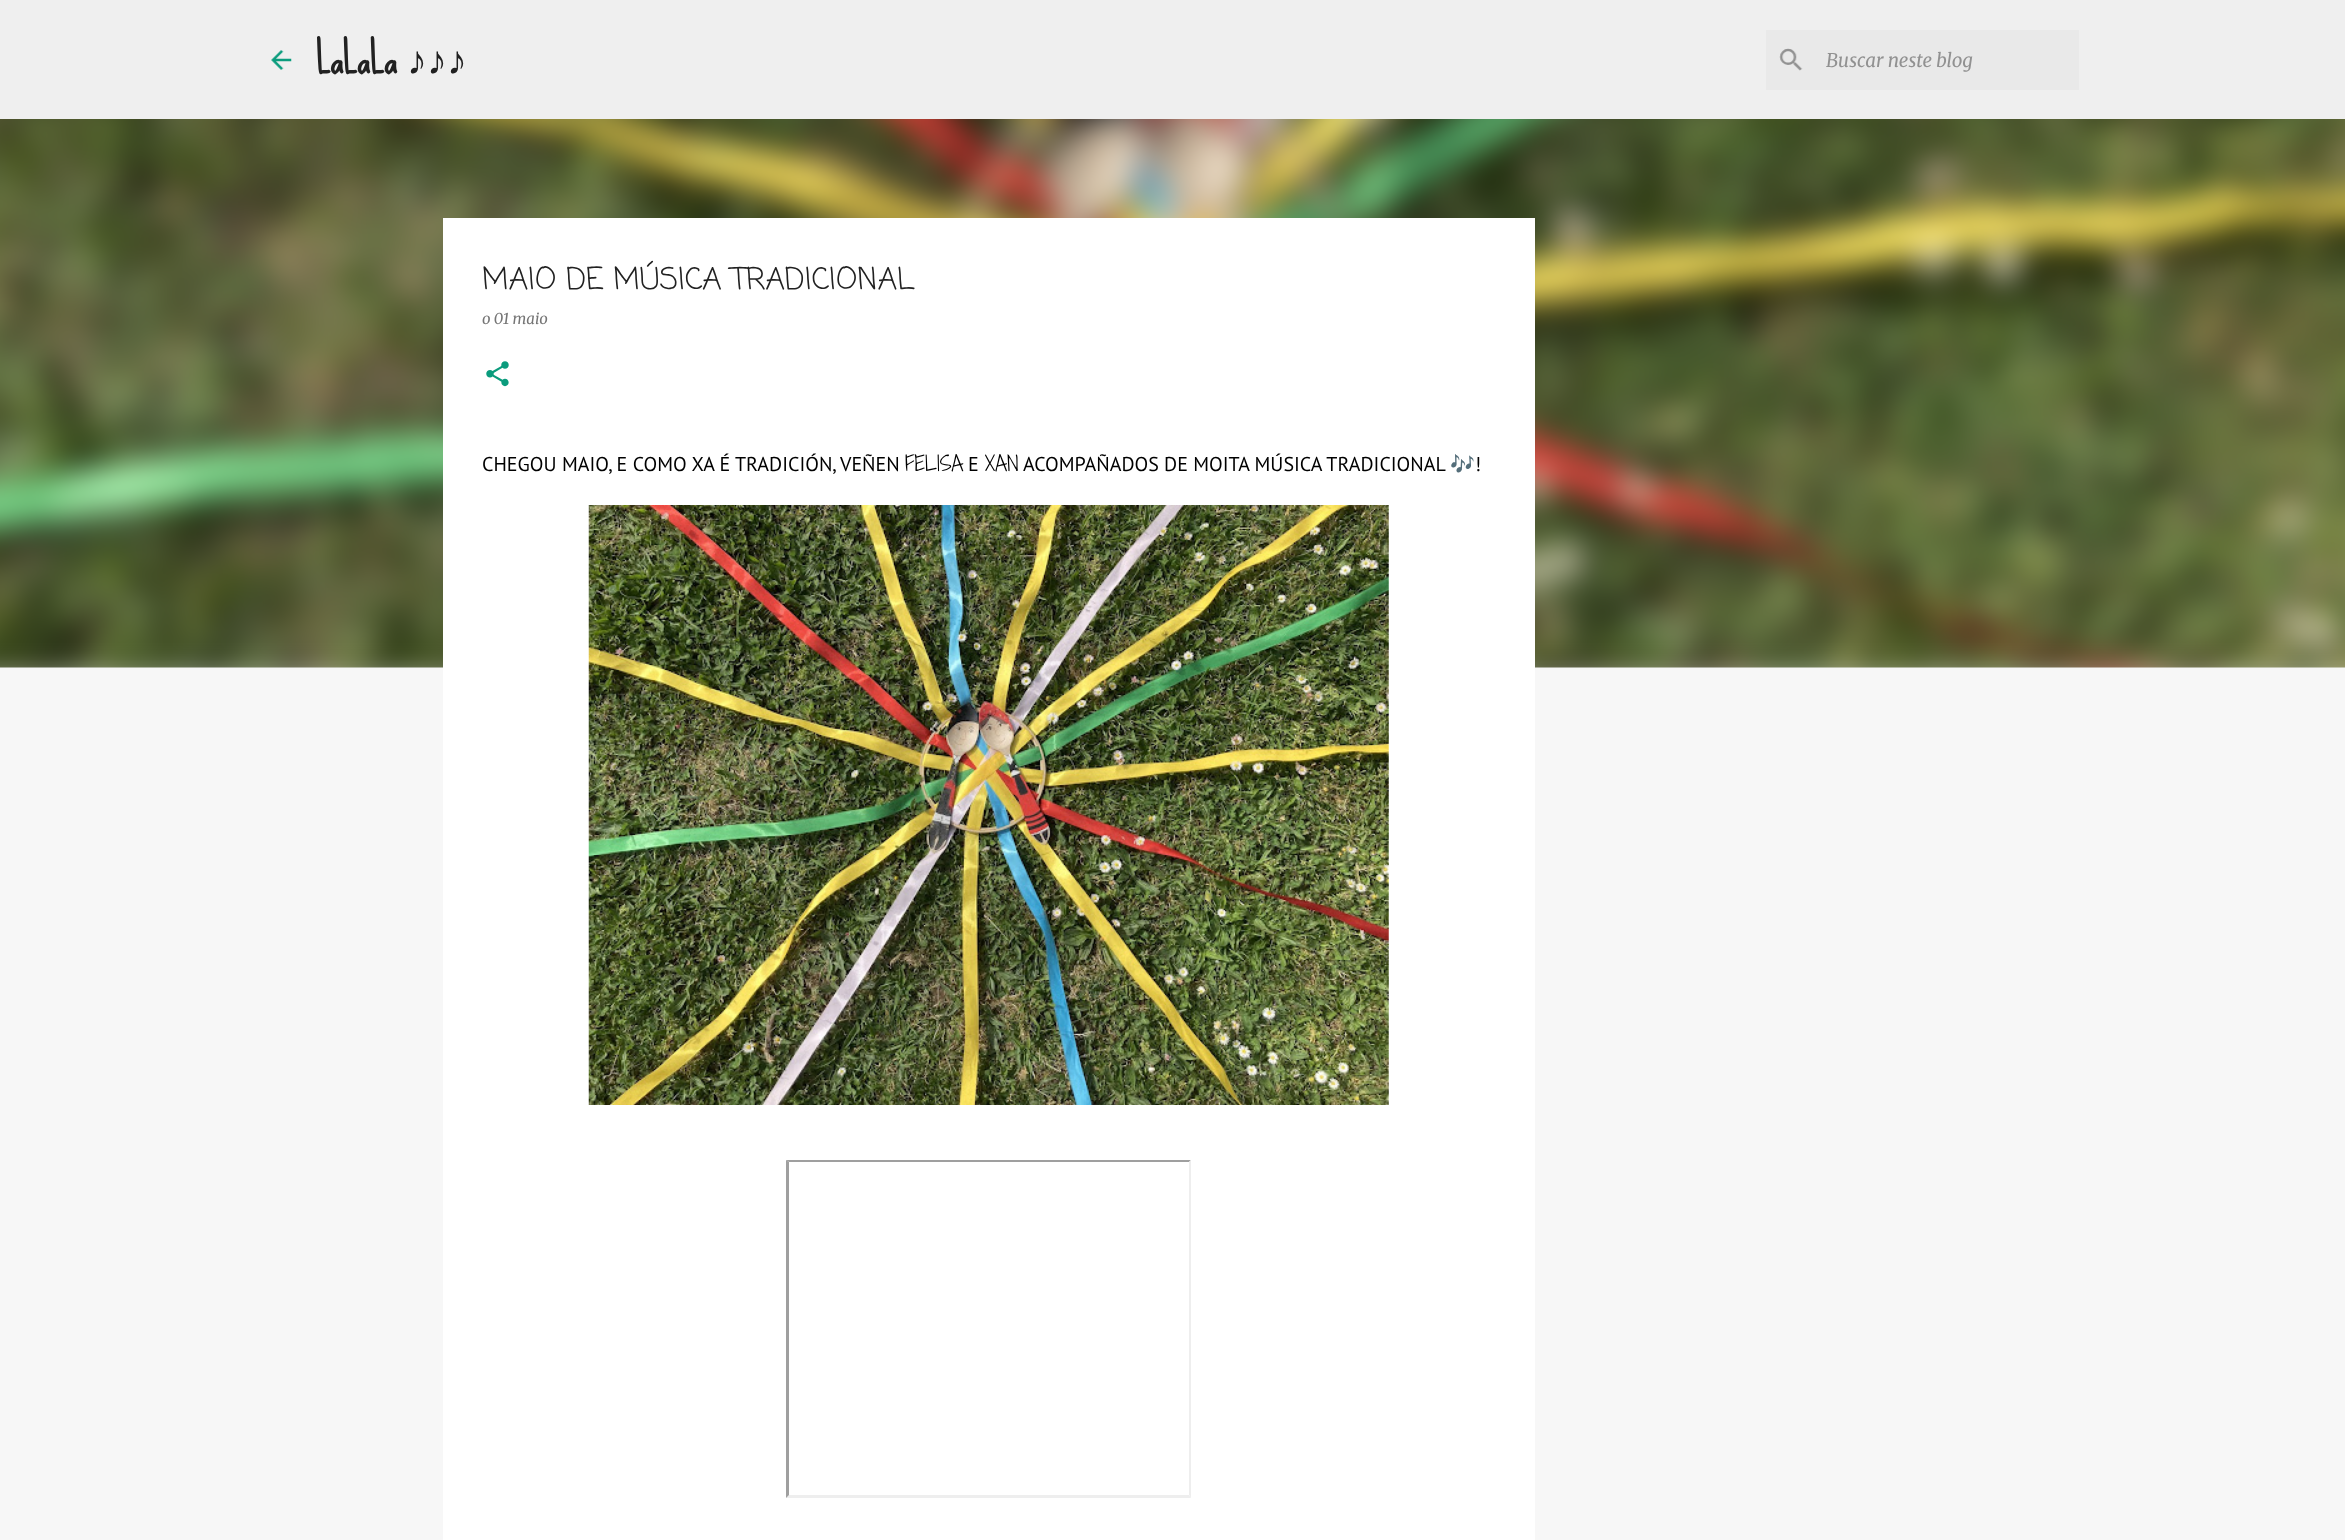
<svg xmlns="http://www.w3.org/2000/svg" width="2345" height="1540">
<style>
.a{font:bold 40px Sue Ellen Francisco;fill:#212121}
.b{font:bold 40px Liberation Serif;fill:#212121}
.c{font:italic 300 18.75px Merriweather;fill:#919191}
.d{font:30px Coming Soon;fill:#212121}
.e{font:italic 300 15px Merriweather;fill:#757575}
.f{font:20px PT Sans;fill:#000}
.g{font:300 20px Shadows Into Light Two;fill:#000}
.h{font:20px Noto Color Emoji;fill:#000}
</style>
<rect width="100%" height="100%" fill="#f7f7f7"/>
<path fill="#efefef" d="M0 0h2345v119H0z"/>
<image href="1.png" x="271" y="50" width="21" height="20"/>
<path fill="#e9e9e9" d="M1766 30h313v60H1766z"/>
<image href="2.png" x="1779" y="48" width="24" height="23"/>
<image href="5.png" x="0" y="119" width="2345" height="549"/>
<path fill="#fff" d="M443 218h1092v1322H443z"/>
<image href="3.png" x="486" y="361" width="23" height="26"/>
<image href="4.png" x="588" y="505" width="801" height="600"/>
<path fill="#9f9f9f" d="M786 1160h405l-2 2h-400z"/>
<path fill="#eee" d="M1191 1160v338l-2-3v-333z"/>
<path fill="#eee" d="M1191 1498h-405l3-3h400z"/>
<path fill="#9f9f9f" d="M786 1498v-338l3 2v333z"/>
<text class="a" x="316" y="74">LaLaLa</text>
<text class="b" x="407" y="74">♪♪♪</text>
<text class="c" x="1826" y="67">Buscar neste blog</text>
<text class="d" x="482" y="289">MAIO DE MÚSICA TRADICIONAL</text>
<text class="e" x="482" y="324">o 01 maio</text>
<text class="f" x="482" y="471">CHEGOU MAIO, E COMO XA É TRADICIÓN, VEÑEN</text>
<text class="g" x="905" y="471">FELISA</text>
<text class="f" x="968" y="471">E</text>
<text class="g" x="985" y="471">XAN</text>
<text class="f" x="1023" y="471">ACOMPAÑADOS DE MOITA MÚSICA TRADICIONAL</text>
<text class="h" x="1450" y="471">🎶</text>
<text class="f" x="1475" y="471">!</text>
</svg>
